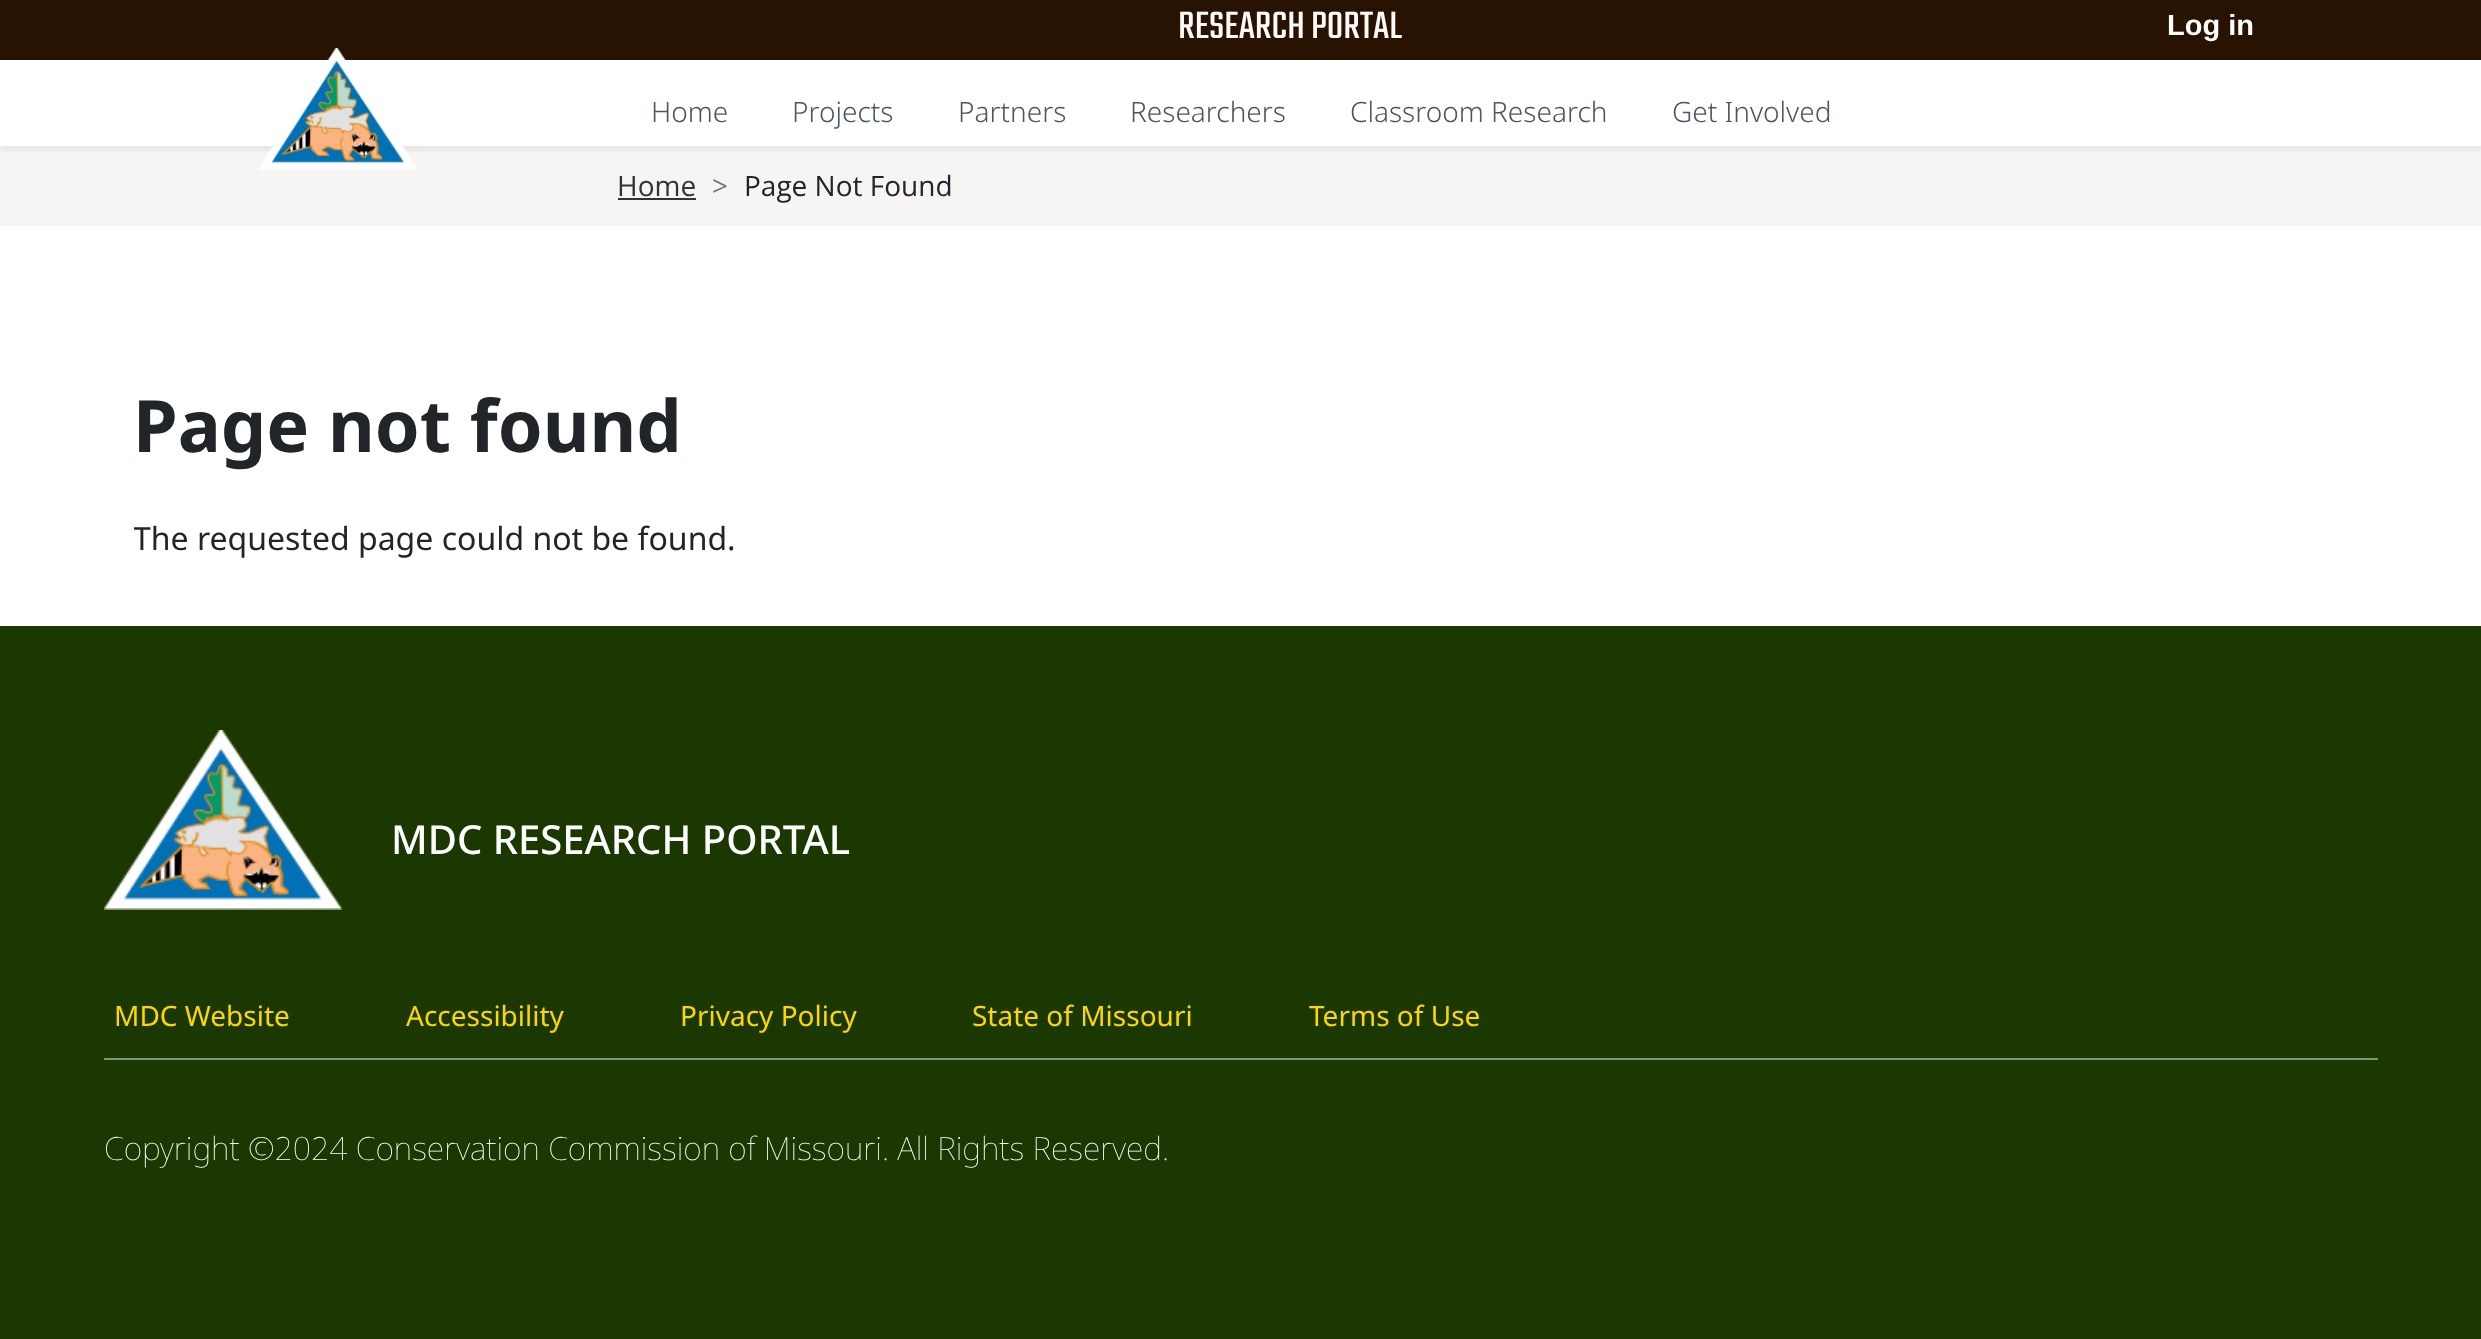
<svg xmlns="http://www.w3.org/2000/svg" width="2481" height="1339">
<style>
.a{font:42px Teko;fill:#fbfaf9}
.b{font:bold 29px Liberation Sans;fill:#fff}
.c{font:300 28px Noto Sans;fill:#4b5563}
.d{font:28px Open Sans;fill:#333}
.e{font:28px Open Sans;fill:#6c757d}
.f{font:28px Open Sans;fill:#212529}
.g{font:bold 72px Noto Sans;fill:#212529}
.h{font:32px Noto Sans;fill:#212529}
.i{font:500 40px Noto Sans;fill:#fff}
.j{font:28px Noto Sans;fill:#ffd700}
.k{font:100 32px Noto Sans;fill:#fff}
</style>
<defs>
<clipPath id="clip1"><path d="M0 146h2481v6H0z"/></clipPath>
<clipPath id="clip2"><path d="M134 514h2216v48H134z"/></clipPath>
</defs>
<rect width="100%" height="100%" fill="#fff"/>
<path fill="#281201" d="M0 0h2481v60H0z"/>
<path fill="#f7f5f3" d="M0 146h2481v80H0z"/>
<g clip-path="url(#clip1)">
<path fill="#00000012" filter="blur(4px)" d="M0 64h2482v86H0z"/>
</g>
<image href="1.png" x="258" y="48" width="160" height="122"/>
<path fill="#333" d="M618 198h78v2H618z"/>
<path fill="#1b3800" d="M0 626h2481v713H0z"/>
<image href="2.png" x="104" y="730" width="238" height="180"/>
<path fill="#7c9a74" d="M104 1058h2274v2H104z"/>
<text class="a" x="1178" y="38">RESEARCH PORTAL</text>
<text class="b" x="2167" y="35">Log in</text>
<text class="c" x="651" y="122">Home</text>
<text class="c" x="792" y="122">Projects</text>
<text class="c" x="958" y="122">Partners</text>
<text class="c" x="1130" y="122">Researchers</text>
<text class="c" x="1350" y="122">Classroom Research</text>
<text class="c" x="1672" y="122">Get Involved</text>
<text class="d" x="617" y="196">Home</text>
<text class="e" x="712" y="196">&gt;</text>
<text class="f" x="744" y="196">Page Not Found</text>
<text class="g" x="133" y="452">Page not found</text>
<g clip-path="url(#clip2)">
<text class="h" x="133" y="550">The requested page could not be found.</text>
</g>
<text class="i" x="391" y="854">MDC RESEARCH PORTAL</text>
<text class="j" x="114" y="1026">MDC Website</text>
<text class="j" x="406" y="1026">Accessibility</text>
<text class="j" x="680" y="1026">Privacy Policy</text>
<text class="j" x="972" y="1026">State of Missouri</text>
<text class="j" x="1309" y="1026">Terms of Use</text>
<text class="k" x="104" y="1160">Copyright ©2024 Conservation Commission of Missouri. All Rights Reserved.</text>
</svg>
